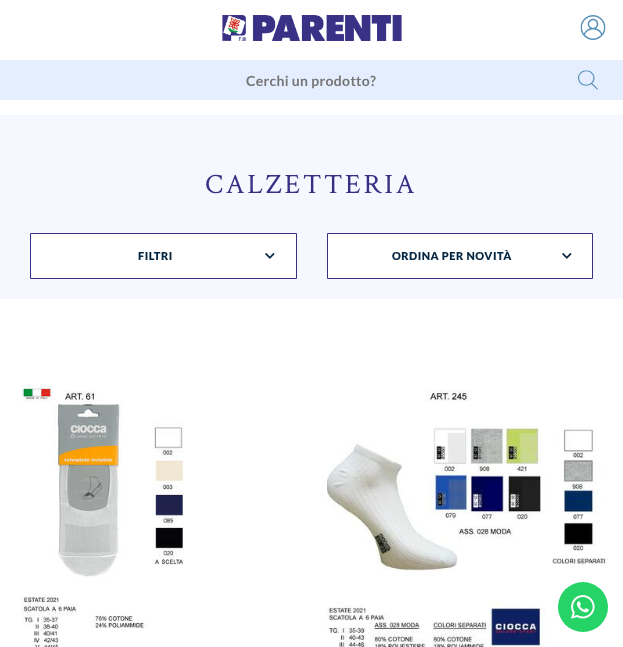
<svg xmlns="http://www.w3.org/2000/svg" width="623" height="647">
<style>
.a{font:bold 14px Lato;letter-spacing:0.3px;fill:#757575}
.b{font:28px Crimson Text;letter-spacing:2.75px;fill:#393085}
.c{font:900 11px Lato;letter-spacing:0.5px;fill:#052642}
</style>
<rect width="100%" height="100%" fill="#fff"/>
<image href="1.png" x="222" y="15" width="180" height="26"/>
<image href="2.png" x="580" y="15" width="26" height="25"/>
<path fill="#e5eeff" d="M0 60h623v40H0z"/>
<image href="3.png" x="578" y="70" width="20" height="20"/>
<path fill="#f5f9ff" d="M0 115h623v184H0z"/>
<path fill="#fff" stroke="#393085" d="M30.5 233.5h266v45H30.5z"/>
<image href="4.png" x="265" y="253" width="10" height="6"/>
<path fill="#fff" stroke="#393085" d="M327.5 233.5h265v45H327.5z"/>
<image href="4.png" x="562" y="253" width="10" height="6"/>
<image href="5.png" x="21" y="384" width="163" height="263"/>
<image href="6.png" x="327" y="389" width="281" height="258"/>
<circle fill="#25d366" cx="583" cy="607" r="25"/>
<image href="7.png" x="571" y="595" width="24" height="24"/>
<text class="a" x="246" y="86">Cerchi un prodotto?</text>
<text class="b" x="205" y="193">CALZETTERIA</text>
<text class="c" x="138" y="260">FILTRI</text>
<text class="c" x="392" y="260">ORDINA PER NOVITÀ</text>
</svg>
